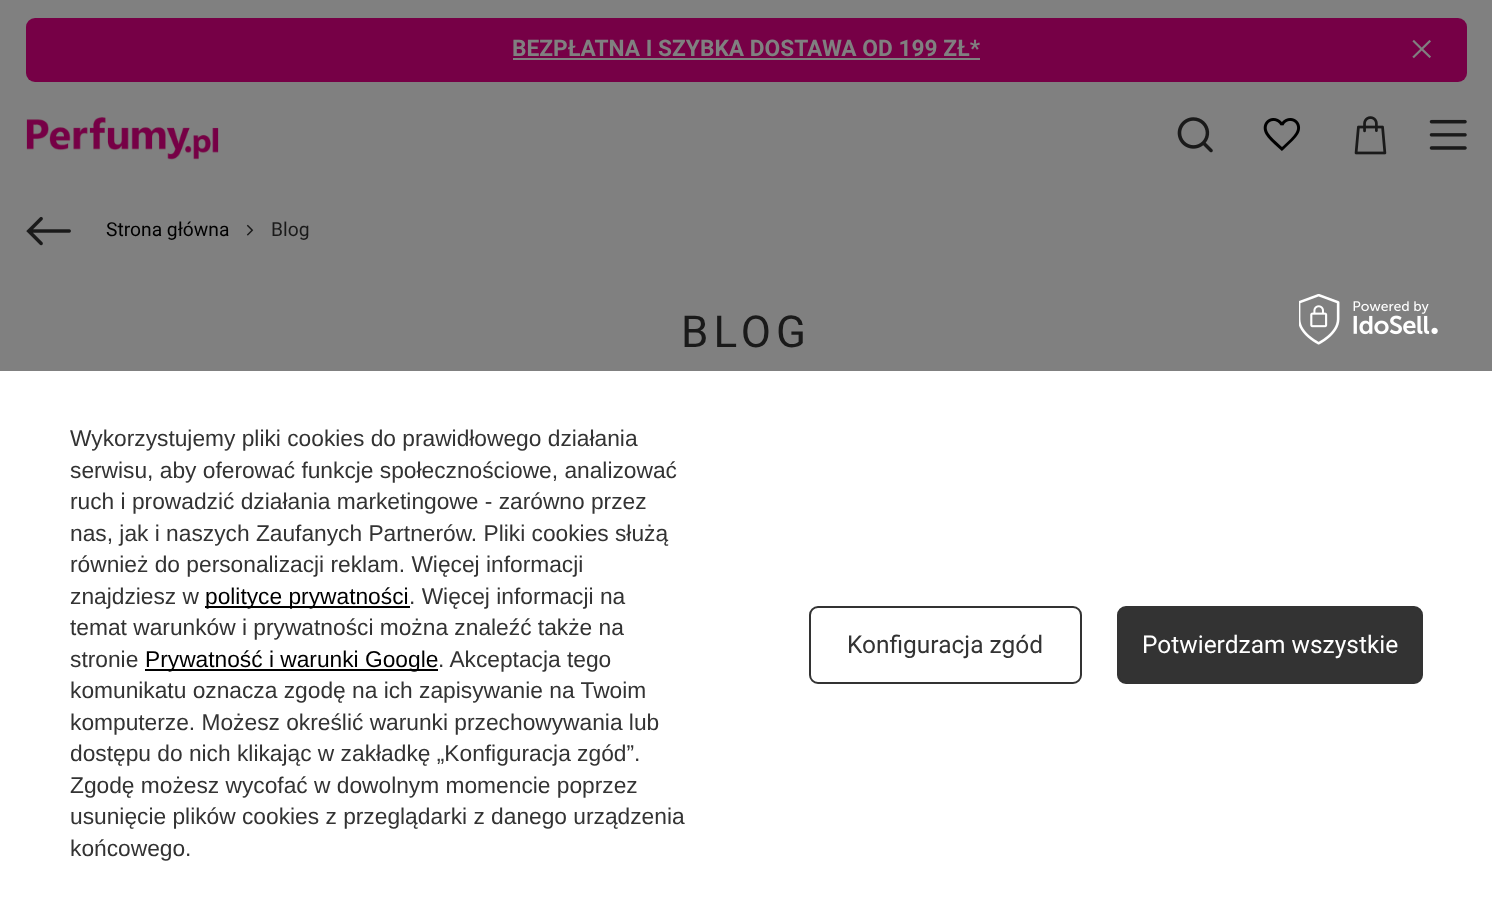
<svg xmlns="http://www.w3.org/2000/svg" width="1492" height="916">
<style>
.a{font:bold 22.75px Roboto;fill:#808080}
.b{font:19.25px Roboto;fill:#000}
.c{font:19.25px Roboto;fill:#1a1a1a}
.d{font:44px Roboto;letter-spacing:5px;fill:#1a1a1a}
.e{font:22.75px Liberation Sans;fill:#333}
.f{font:22.75px Liberation Sans;fill:#000}
.g{font:24.5px Roboto;fill:#333}
.h{font:24.5px Roboto;fill:#fff}
</style>
<rect width="100%" height="100%" fill="#808080"/>
<rect fill="#760046" x="26" y="18" width="1441" height="64" rx="9"/>
<path fill="#808080" d="M513 58h467v2H513z"/>
<image href="1.png" x="1412" y="39" width="19" height="20"/>
<image href="2.png" x="26" y="117" width="193" height="43"/>
<image href="3.png" x="1177" y="117" width="36" height="36"/>
<image href="4.png" x="1263" y="118" width="38" height="33"/>
<image href="5.png" x="1354" y="116" width="33" height="39"/>
<image href="6.png" x="1429" y="119" width="38" height="31"/>
<image href="7.png" x="26" y="216" width="45" height="30"/>
<image href="8.png" x="246" y="224" width="8" height="12"/>
<path fill="#fff" d="M0 371h1492v545H0z"/>
<image href="9.png" x="1299" y="294" width="139" height="51"/>
<path fill="#000" d="M205 606h205v2H205z"/>
<path fill="#000" d="M145 669h293v2H145z"/>
<rect fill="none" stroke="#333" stroke-width="2" x="810" y="607" width="271" height="76" rx="8"/>
<rect fill="#333" stroke="#333" stroke-width="2" x="1118" y="607" width="304" height="76" rx="8"/>
<text class="a" x="512" y="56">BEZPŁATNA I SZYBKA DOSTAWA OD 199 ZŁ*</text>
<text class="b" x="106" y="236">Strona główna</text>
<text class="c" x="271" y="236">Blog</text>
<text class="d" x="681" y="347">BLOG</text>
<text class="e" x="70" y="446">Wykorzystujemy pliki cookies do prawidłowego działania</text>
<text class="e" x="70" y="478">serwisu, aby oferować funkcje społecznościowe, analizować</text>
<text class="e" x="70" y="509">ruch i prowadzić działania marketingowe - zarówno przez</text>
<text class="e" x="70" y="541">nas, jak i naszych Zaufanych Partnerów. Pliki cookies służą</text>
<text class="e" x="70" y="572">również do personalizacji reklam. Więcej informacji</text>
<text class="e" x="70" y="604">znajdziesz w</text>
<text class="f" x="205" y="604">polityce prywatności</text>
<text class="e" x="409" y="604">. Więcej informacji na</text>
<text class="e" x="70" y="635">temat warunków i prywatności można znaleźć także na</text>
<text class="e" x="70" y="667">stronie</text>
<text class="f" x="145" y="667">Prywatność i warunki Google</text>
<text class="e" x="438" y="667">. Akceptacja tego</text>
<text class="e" x="70" y="698">komunikatu oznacza zgodę na ich zapisywanie na Twoim</text>
<text class="e" x="70" y="730">komputerze. Możesz określić warunki przechowywania lub</text>
<text class="e" x="70" y="761">dostępu do nich klikając w zakładkę „Konfiguracja zgód”.</text>
<text class="e" x="70" y="793">Zgodę możesz wycofać w dowolnym momencie poprzez</text>
<text class="e" x="70" y="824">usunięcie plików cookies z przeglądarki z danego urządzenia</text>
<text class="e" x="70" y="856">końcowego.</text>
<text class="g" x="847" y="653">Konfiguracja zgód</text>
<text class="h" x="1142" y="653">Potwierdzam wszystkie</text>
</svg>
